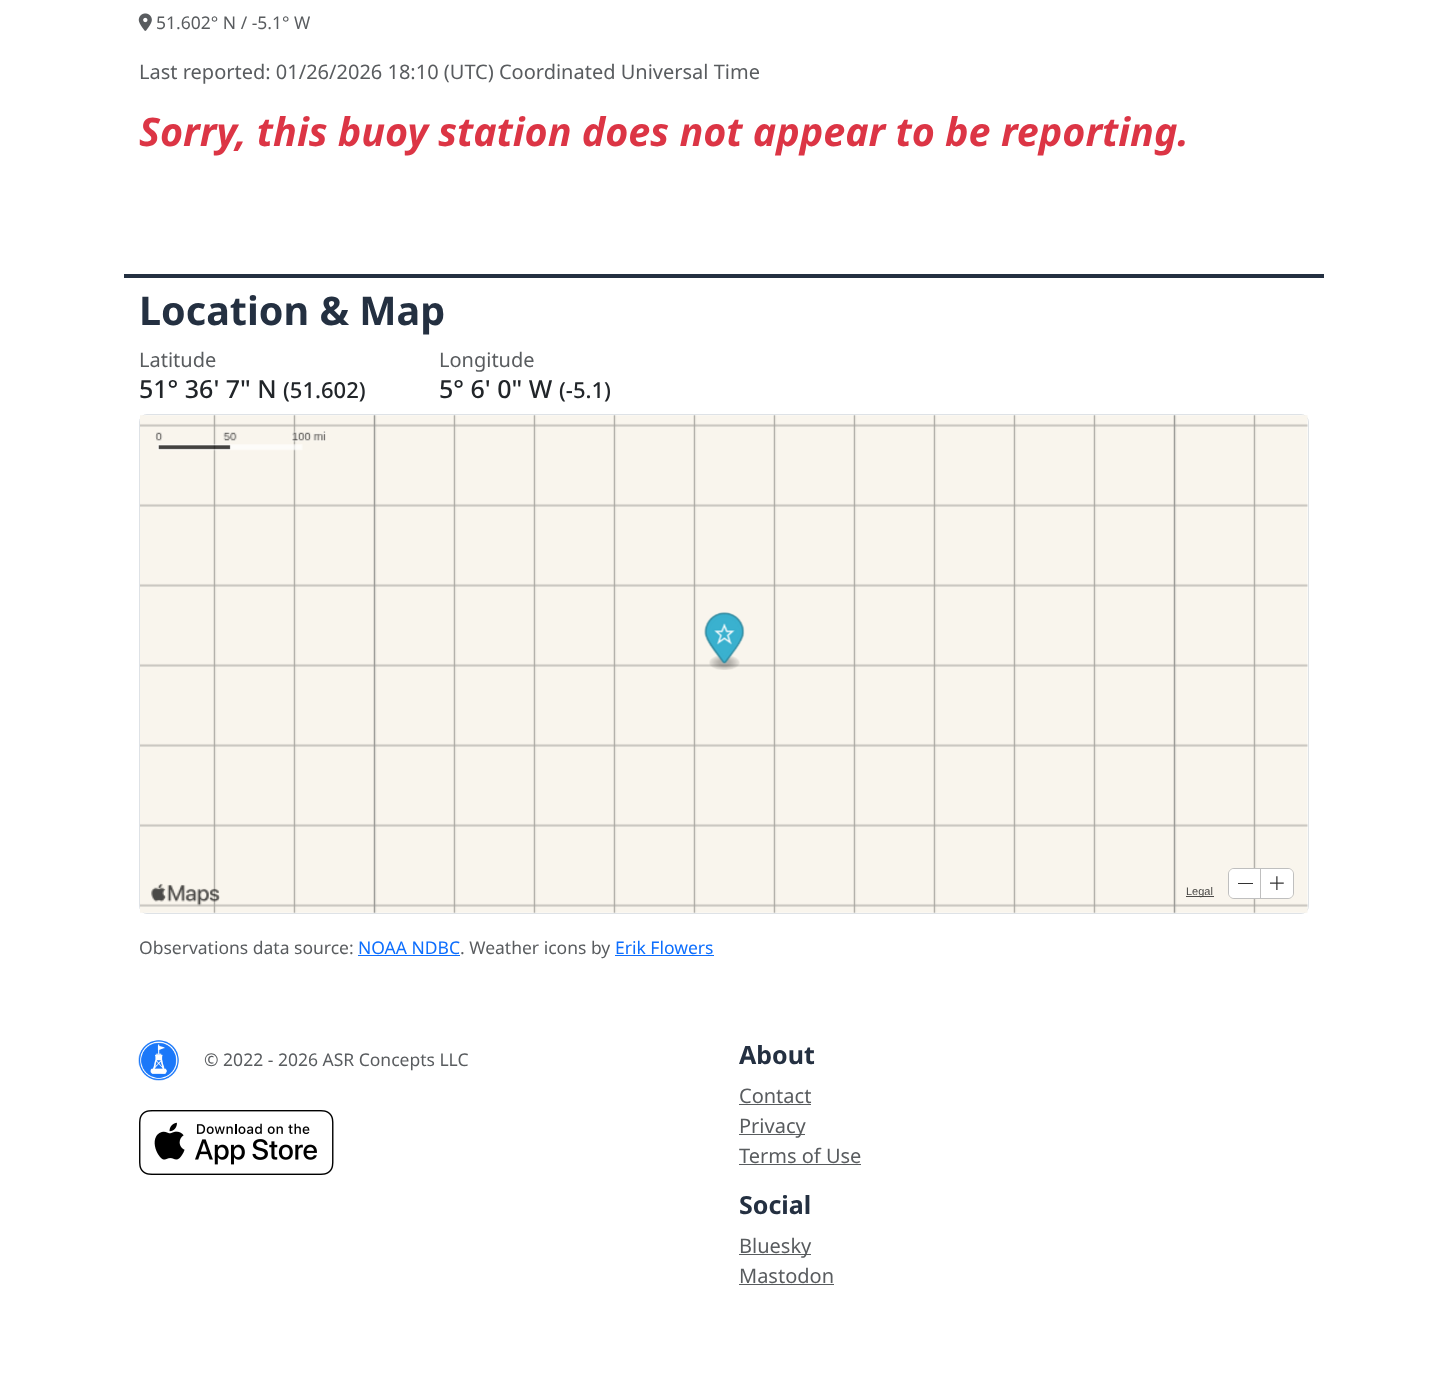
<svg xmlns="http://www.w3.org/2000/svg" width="1447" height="1381">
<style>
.a{font:17.5px Noto Sans;fill:#595c5f}
.b{font:20px Noto Sans;fill:#595c5f}
.c{font:italic bold 39.5px Noto Sans;fill:#dc3545}
.d{font:bold 39.5px Noto Sans;fill:#243041}
.e{font:500 25px Noto Sans;fill:#212529}
.f{font:500 22px Noto Sans;fill:#212529}
.g{font:11px Liberation Sans;fill:#494845}
.h{font:17.5px Noto Sans;fill:#0d6efd}
.i{font:bold 25px Noto Sans;fill:#243041}
</style>
<rect width="100%" height="100%" fill="#fff"/>
<image href="1.png" x="138" y="13" width="14" height="18"/>
<path fill="#243041" d="M124 274h1200v4H124z"/>
<rect fill="none" stroke="#dee2e6" x="139.5" y="414.5" width="1169" height="499" rx="7.5"/>
<image href="2.png" x="140" y="415" width="1168" height="498"/>
<image href="3.png" x="704" y="612" width="41" height="58"/>
<image href="4.png" x="155" y="431" width="171" height="20"/>
<image href="5.png" x="151" y="883" width="69" height="23"/>
<path fill="#4b4a47" d="M1186 896h28v1H1186z"/>
<rect fill="none" stroke="#bfbfbf" x="1228.5" y="868.5" width="65" height="30" rx="5.5"/>
<rect fill="#fff" x="1229" y="869" width="64" height="29" rx="5"/>
<path fill="#333" d="M1238 883h15v1H1238z"/>
<path fill="#bfbfbf" d="M1260 869h1v29H1260z"/>
<image href="6.png" x="1270" y="876" width="14" height="14"/>
<path fill="#0d6efd" d="M358 955h102v1H358z"/>
<path fill="#0d6efd" d="M615 955h99v1H615z"/>
<image href="7.png" x="138" y="1040" width="41" height="41"/>
<image href="8.png" x="139" y="1110" width="195" height="65"/>
<path fill="#595c5f" d="M739 1104h72v1H739z"/>
<path fill="#595c5f" d="M739 1134h66v1H739z"/>
<path fill="#595c5f" d="M739 1164h122v1H739z"/>
<path fill="#595c5f" d="M739 1254h72v1H739z"/>
<path fill="#595c5f" d="M739 1284h95v1H739z"/>
<text class="a" x="156" y="29">51.602° N / -5.1° W</text>
<text class="b" x="139" y="79">Last reported: 01/26/2026 18:10 (UTC) Coordinated Universal Time</text>
<text class="c" x="139" y="146">Sorry, this buoy station does not appear to be reporting.</text>
<text class="d" x="139" y="325">Location &amp; Map</text>
<text class="b" x="139" y="367">Latitude</text>
<text class="e" x="139" y="398">51° 36' 7" N</text>
<text class="f" x="283" y="398">(51.602)</text>
<text class="b" x="439" y="367">Longitude</text>
<text class="e" x="439" y="398">5° 6' 0" W</text>
<text class="f" x="559" y="398">(-5.1)</text>
<text class="g" x="1186" y="895">Legal</text>
<text class="a" x="139" y="954">Observations data source:</text>
<text class="h" x="358" y="954">NOAA NDBC</text>
<text class="a" x="460" y="954">. Weather icons by</text>
<text class="h" x="615" y="954">Erik Flowers</text>
<text class="a" x="204" y="1066">© 2022 - 2026 ASR Concepts LLC</text>
<text class="i" x="739" y="1064">About</text>
<text class="b" x="739" y="1103">Contact</text>
<text class="b" x="739" y="1133">Privacy</text>
<text class="b" x="739" y="1163">Terms of Use</text>
<text class="i" x="739" y="1214">Social</text>
<text class="b" x="739" y="1253">Bluesky</text>
<text class="b" x="739" y="1283">Mastodon</text>
</svg>
